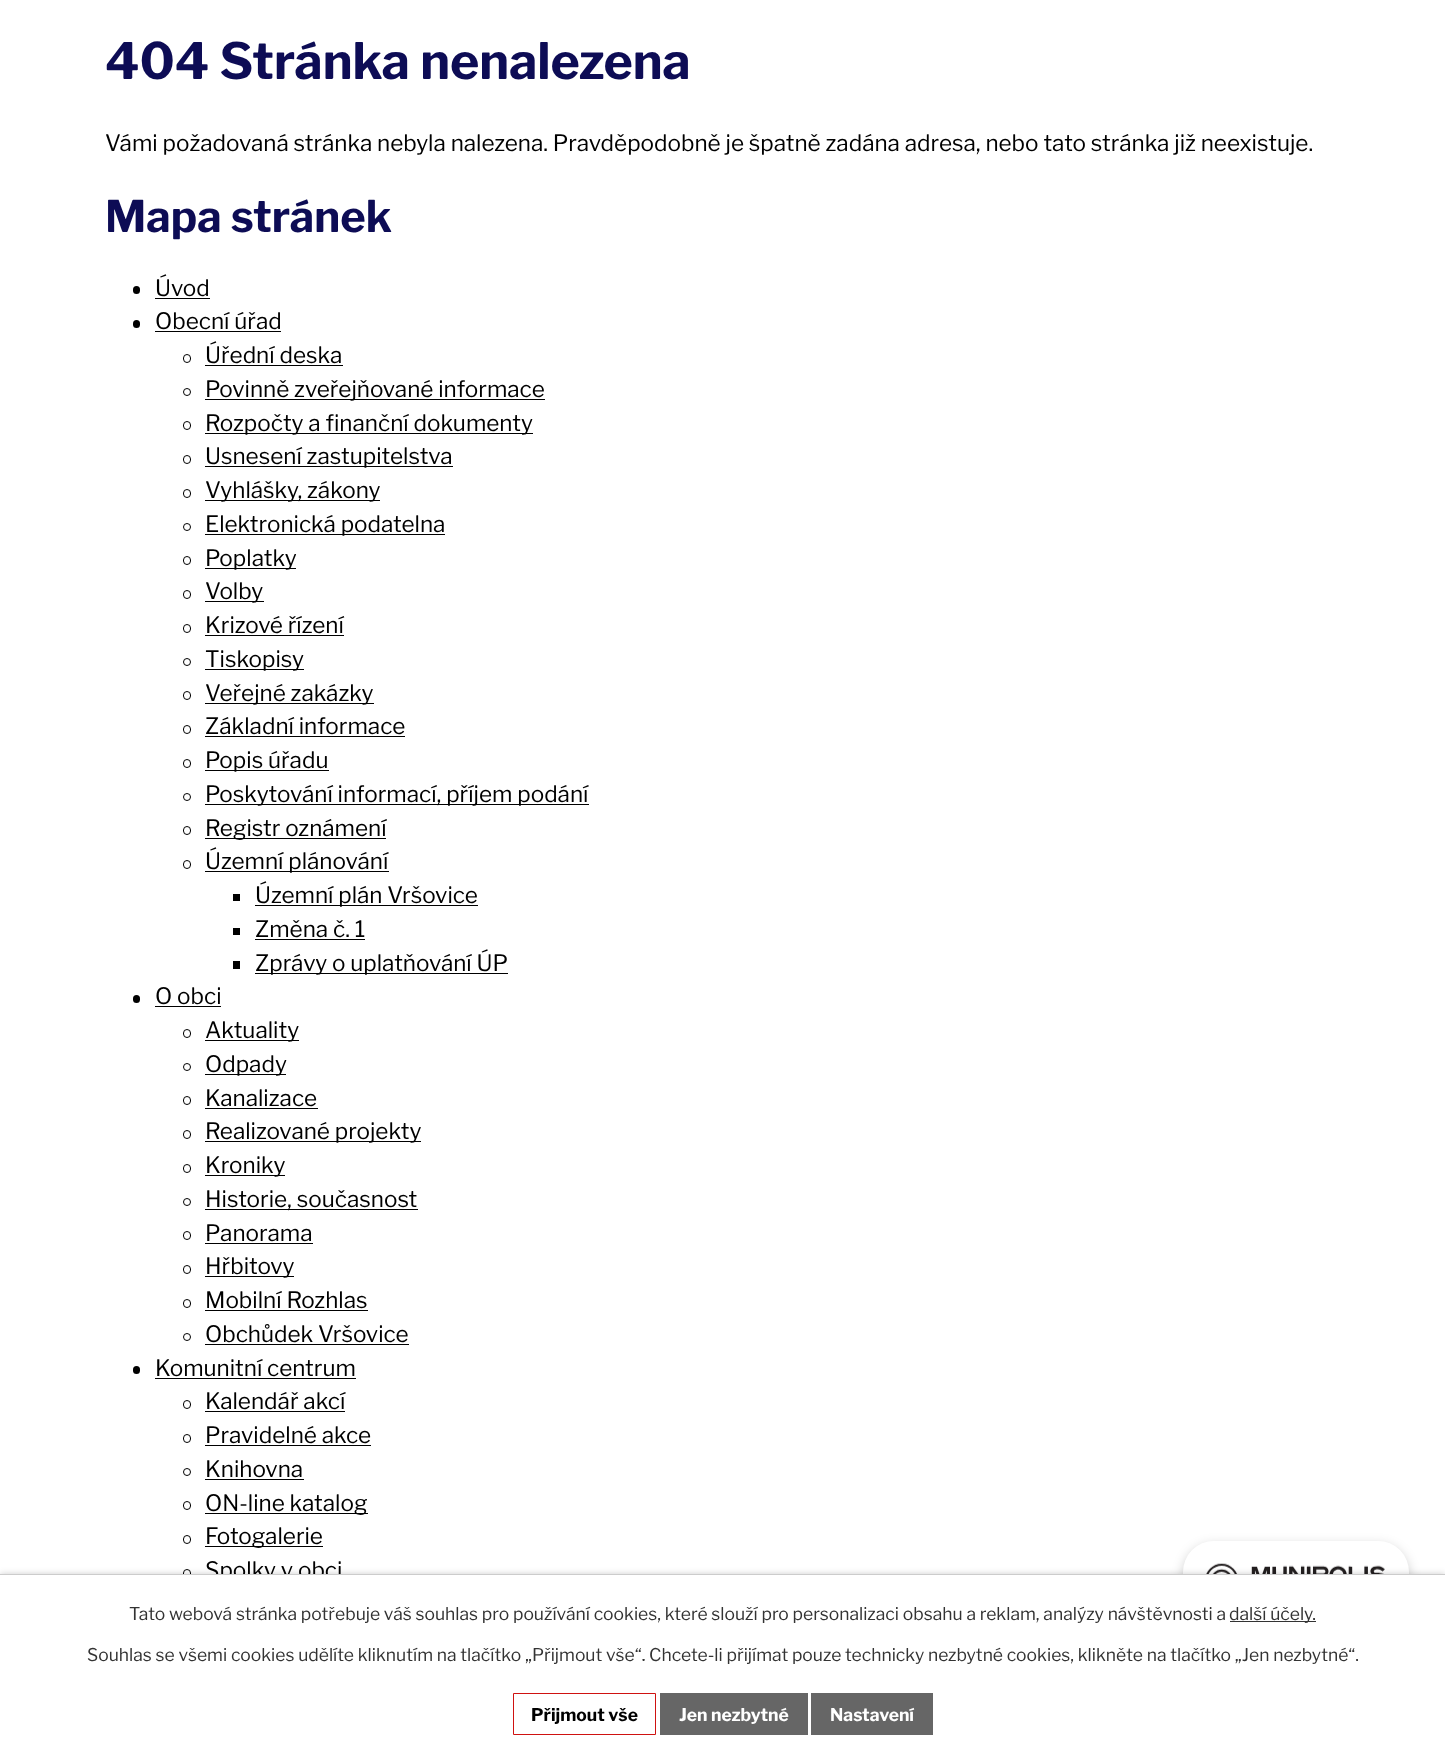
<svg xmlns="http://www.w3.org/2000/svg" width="1445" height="1758">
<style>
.a{font:bold 50px Libre Franklin;fill:#0d0c55}
.b{font:22.5px Libre Franklin;fill:#000}
.c{font:bold 43.5px Libre Franklin;fill:#0d0c55}
.d{font:17.5px Libre Franklin;fill:#333}
.e{font:bold 17.5px Libre Franklin;fill:#000}
.f{font:bold 17.5px Libre Franklin;fill:#fff}
</style>
<rect width="100%" height="100%" fill="#fff"/>
<rect fill="#000" x="133" y="286" width="7" height="8" rx="3.5"/>
<path fill="#000" d="M155 298h55v1H155z"/>
<rect fill="#000" x="133" y="320" width="7" height="8" rx="3.5"/>
<path fill="#000" d="M155 331h126v1H155z"/>
<rect fill="none" stroke="#000" x="183.5" y="354.5" width="7" height="8" rx="3.5"/>
<path fill="#000" d="M205 365h138v1H205z"/>
<circle fill="none" stroke="#000" cx="187" cy="392" r="3.5"/>
<path fill="#000" d="M205 399h340v1H205z"/>
<rect fill="none" stroke="#000" x="183.5" y="421.5" width="7" height="8" rx="3.5"/>
<path fill="#000" d="M205 433h328v1H205z"/>
<rect fill="none" stroke="#000" x="183.5" y="455.5" width="7" height="8" rx="3.5"/>
<path fill="#000" d="M205 466h248v1H205z"/>
<rect fill="none" stroke="#000" x="183.5" y="489.5" width="7" height="8" rx="3.5"/>
<path fill="#000" d="M205 500h175v1H205z"/>
<circle fill="none" stroke="#000" cx="187" cy="527" r="3.5"/>
<path fill="#000" d="M205 534h240v1H205z"/>
<rect fill="none" stroke="#000" x="183.5" y="556.5" width="7" height="8" rx="3.5"/>
<path fill="#000" d="M205 568h91v1H205z"/>
<rect fill="none" stroke="#000" x="183.5" y="590.5" width="7" height="8" rx="3.5"/>
<path fill="#000" d="M205 601h59v1H205z"/>
<rect fill="none" stroke="#000" x="183.5" y="624.5" width="7" height="8" rx="3.5"/>
<path fill="#000" d="M205 635h139v1H205z"/>
<circle fill="none" stroke="#000" cx="187" cy="662" r="3.5"/>
<path fill="#000" d="M205 669h99v1H205z"/>
<rect fill="none" stroke="#000" x="183.5" y="691.5" width="7" height="8" rx="3.5"/>
<path fill="#000" d="M205 703h169v1H205z"/>
<rect fill="none" stroke="#000" x="183.5" y="725.5" width="7" height="8" rx="3.5"/>
<path fill="#000" d="M205 736h200v1H205z"/>
<rect fill="none" stroke="#000" x="183.5" y="759.5" width="7" height="8" rx="3.5"/>
<path fill="#000" d="M205 770h124v1H205z"/>
<circle fill="none" stroke="#000" cx="187" cy="797" r="3.5"/>
<path fill="#000" d="M205 804h384v1H205z"/>
<rect fill="none" stroke="#000" x="183.5" y="826.5" width="7" height="8" rx="3.5"/>
<path fill="#000" d="M205 838h181v1H205z"/>
<rect fill="none" stroke="#000" x="183.5" y="860.5" width="7" height="8" rx="3.5"/>
<path fill="#000" d="M205 871h184v1H205z"/>
<path fill="#000" d="M233 894h7v7H233z"/>
<path fill="#000" d="M255 905h223v1H255z"/>
<path fill="#000" d="M233 928h7v7H233z"/>
<path fill="#000" d="M255 939h110v1H255z"/>
<path fill="#000" d="M233 961h7v8H233z"/>
<path fill="#000" d="M255 973h253v1H255z"/>
<rect fill="#000" x="133" y="995" width="7" height="8" rx="3.5"/>
<path fill="#000" d="M155 1006h66v1H155z"/>
<rect fill="none" stroke="#000" x="183.5" y="1029.5" width="7" height="8" rx="3.5"/>
<path fill="#000" d="M205 1040h94v1H205z"/>
<circle fill="none" stroke="#000" cx="187" cy="1067" r="3.5"/>
<path fill="#000" d="M205 1074h81v1H205z"/>
<rect fill="none" stroke="#000" x="183.5" y="1096.5" width="7" height="8" rx="3.5"/>
<path fill="#000" d="M205 1108h113v1H205z"/>
<rect fill="none" stroke="#000" x="183.5" y="1130.5" width="7" height="8" rx="3.5"/>
<path fill="#000" d="M205 1141h216v1H205z"/>
<rect fill="none" stroke="#000" x="183.5" y="1164.5" width="7" height="8" rx="3.5"/>
<path fill="#000" d="M205 1175h80v1H205z"/>
<circle fill="none" stroke="#000" cx="187" cy="1202" r="3.5"/>
<path fill="#000" d="M205 1209h213v1H205z"/>
<rect fill="none" stroke="#000" x="183.5" y="1231.5" width="7" height="8" rx="3.5"/>
<path fill="#000" d="M205 1243h108v1H205z"/>
<rect fill="none" stroke="#000" x="183.5" y="1265.5" width="7" height="8" rx="3.5"/>
<path fill="#000" d="M205 1276h89v1H205z"/>
<rect fill="none" stroke="#000" x="183.5" y="1299.5" width="7" height="8" rx="3.5"/>
<path fill="#000" d="M205 1310h163v1H205z"/>
<circle fill="none" stroke="#000" cx="187" cy="1337" r="3.5"/>
<path fill="#000" d="M205 1344h204v1H205z"/>
<rect fill="#000" x="133" y="1366" width="7" height="8" rx="3.5"/>
<path fill="#000" d="M155 1378h201v1H155z"/>
<rect fill="none" stroke="#000" x="183.5" y="1400.5" width="7" height="8" rx="3.5"/>
<path fill="#000" d="M205 1411h140v1H205z"/>
<rect fill="none" stroke="#000" x="183.5" y="1434.5" width="7" height="8" rx="3.5"/>
<path fill="#000" d="M205 1445h166v1H205z"/>
<circle fill="none" stroke="#000" cx="187" cy="1472" r="3.5"/>
<path fill="#000" d="M205 1479h99v1H205z"/>
<rect fill="none" stroke="#000" x="183.5" y="1501.5" width="7" height="8" rx="3.5"/>
<path fill="#000" d="M205 1513h163v1H205z"/>
<rect fill="none" stroke="#000" x="183.5" y="1535.5" width="7" height="8" rx="3.5"/>
<path fill="#000" d="M205 1546h118v1H205z"/>
<rect fill="none" stroke="#000" x="183.5" y="1569.5" width="7" height="8" rx="3.5"/>
<rect fill="#00000033" filter="blur(6px)" x="1183" y="1545" width="226" height="161" rx="31"/>
<rect fill="#fff" x="1183" y="1541" width="226" height="162" rx="31"/>
<image href="1.png" x="1206" y="1563" width="179" height="11"/>
<path fill="#00000033" filter="blur(3px)" d="M0 1574h1445v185H0z"/>
<text class="a" x="105" y="79">404 Stránka nenalezena</text>
<text class="b" x="105" y="151">Vámi požadovaná stránka nebyla nalezena. Pravděpodobně je špatně zadána adresa, nebo tato stránka již neexistuje.</text>
<text class="c" x="105" y="232">Mapa stránek</text>
<text class="b" x="155" y="296">Úvod</text>
<text class="b" x="155" y="329">Obecní úřad</text>
<text class="b" x="205" y="363">Úřední deska</text>
<text class="b" x="205" y="397">Povinně zveřejňované informace</text>
<text class="b" x="205" y="431">Rozpočty a finanční dokumenty</text>
<text class="b" x="205" y="464">Usnesení zastupitelstva</text>
<text class="b" x="205" y="498">Vyhlášky, zákony</text>
<text class="b" x="205" y="532">Elektronická podatelna</text>
<text class="b" x="205" y="566">Poplatky</text>
<text class="b" x="205" y="599">Volby</text>
<text class="b" x="205" y="633">Krizové řízení</text>
<text class="b" x="205" y="667">Tiskopisy</text>
<text class="b" x="205" y="701">Veřejné zakázky</text>
<text class="b" x="205" y="734">Základní informace</text>
<text class="b" x="205" y="768">Popis úřadu</text>
<text class="b" x="205" y="802">Poskytování informací, příjem podání</text>
<text class="b" x="205" y="836">Registr oznámení</text>
<text class="b" x="205" y="869">Územní plánování</text>
<text class="b" x="255" y="903">Územní plán Vršovice</text>
<text class="b" x="255" y="937">Změna č. 1</text>
<text class="b" x="255" y="971">Zprávy o uplatňování ÚP</text>
<text class="b" x="155" y="1004">O obci</text>
<text class="b" x="205" y="1038">Aktuality</text>
<text class="b" x="205" y="1072">Odpady</text>
<text class="b" x="205" y="1106">Kanalizace</text>
<text class="b" x="205" y="1139">Realizované projekty</text>
<text class="b" x="205" y="1173">Kroniky</text>
<text class="b" x="205" y="1207">Historie, současnost</text>
<text class="b" x="205" y="1241">Panorama</text>
<text class="b" x="205" y="1274">Hřbitovy</text>
<text class="b" x="205" y="1308">Mobilní Rozhlas</text>
<text class="b" x="205" y="1342">Obchůdek Vršovice</text>
<text class="b" x="155" y="1376">Komunitní centrum</text>
<text class="b" x="205" y="1409">Kalendář akcí</text>
<text class="b" x="205" y="1443">Pravidelné akce</text>
<text class="b" x="205" y="1477">Knihovna</text>
<text class="b" x="205" y="1511">ON-line katalog</text>
<text class="b" x="205" y="1544">Fotogalerie</text>
<text class="b" x="205" y="1578">Spolky v obci</text>
<path fill="#fff" d="M0 1575h1445v183H0z"/>
<path fill="#ccc" d="M0 1574h1445v1H0z"/>
<text class="d" x="129" y="1620">Tato webová stránka potřebuje váš souhlas pro používání cookies, které slouží pro personalizaci obsahu a reklam, analýzy návštěvnosti a</text>
<path fill="#333" d="M1230 1621h86v1H1230z"/>
<text class="d" x="1229" y="1620">další účely.</text>
<text class="d" x="87" y="1661">Souhlas se všemi cookies udělíte kliknutím na tlačítko „Přijmout vše“. Chcete-li přijímat pouze technicky nezbytné cookies, klikněte na tlačítko „Jen nezbytné“.</text>
<path fill="none" stroke="#cf1211" d="M513.5 1693.5h142v41H513.5z"/>
<text class="e" x="531" y="1721">Přijmout vše</text>
<path fill="#666" d="M660 1693h148v42H660z"/>
<text class="f" x="679" y="1721">Jen nezbytné</text>
<path fill="#666" d="M811 1693h122v42H811z"/>
<text class="f" x="830" y="1721">Nastavení</text>
</svg>
